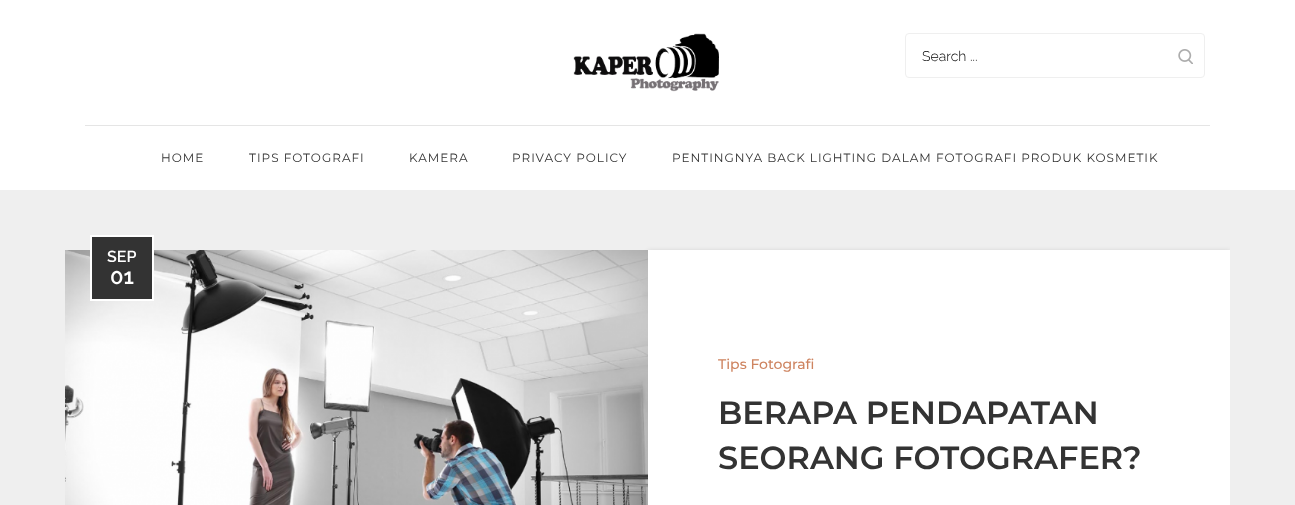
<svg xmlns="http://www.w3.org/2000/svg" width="1295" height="505">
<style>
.a{font:300 14px Raleway;fill:#000}
.b{font:12px Montserrat;letter-spacing:1px;fill:#333}
.c{font:600 16px Raleway;fill:#fff}
.d{font:600 22px Raleway;fill:#fff}
.e{font:500 14px Montserrat;fill:#ce8460}
.f{font:600 32px Montserrat;fill:#333}
</style>
<defs>
<clipPath id="clip1"><path d="M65 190h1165v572H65z"/></clipPath>
</defs>
<rect width="100%" height="100%" fill="#efefef"/>
<path fill="#fff" d="M0 0h1295v190H0z"/>
<rect fill="none" stroke="#efefef" x="905.5" y="33.5" width="299" height="44" rx="3.5"/>
<image href="1.png" x="1178" y="49" width="15" height="15"/>
<image href="2.png" x="573" y="33" width="146" height="59"/>
<path fill="#e5e5e5" d="M85 125h1125v1H85z"/>
<g clip-path="url(#clip1)">
<path fill="#03030326" filter="blur(2.5px)" d="M648 251h582v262H648z"/>
</g>
<image href="3.png" x="65" y="250" width="583" height="255"/>
<path fill="#fff" d="M648 250h582v255H648z"/>
<path fill="#333" stroke="#fff" stroke-width="2" d="M91 236h62v64H91z"/>
<text class="a" x="922" y="61">Search ...</text>
<text class="b" x="161" y="162">HOME</text>
<text class="b" x="249" y="162">TIPS FOTOGRAFI</text>
<text class="b" x="409" y="162">KAMERA</text>
<text class="b" x="512" y="162">PRIVACY POLICY</text>
<text class="b" x="672" y="162">PENTINGNYA BACK LIGHTING DALAM FOTOGRAFI PRODUK KOSMETIK</text>
<text class="c" x="107" y="262">SEP</text>
<text class="d" x="110" y="284">01</text>
<text class="e" x="718" y="369">Tips Fotografi</text>
<text class="f" x="718" y="424">BERAPA PENDAPATAN</text>
<text class="f" x="718" y="469">SEORANG FOTOGRAFER?</text>
</svg>
